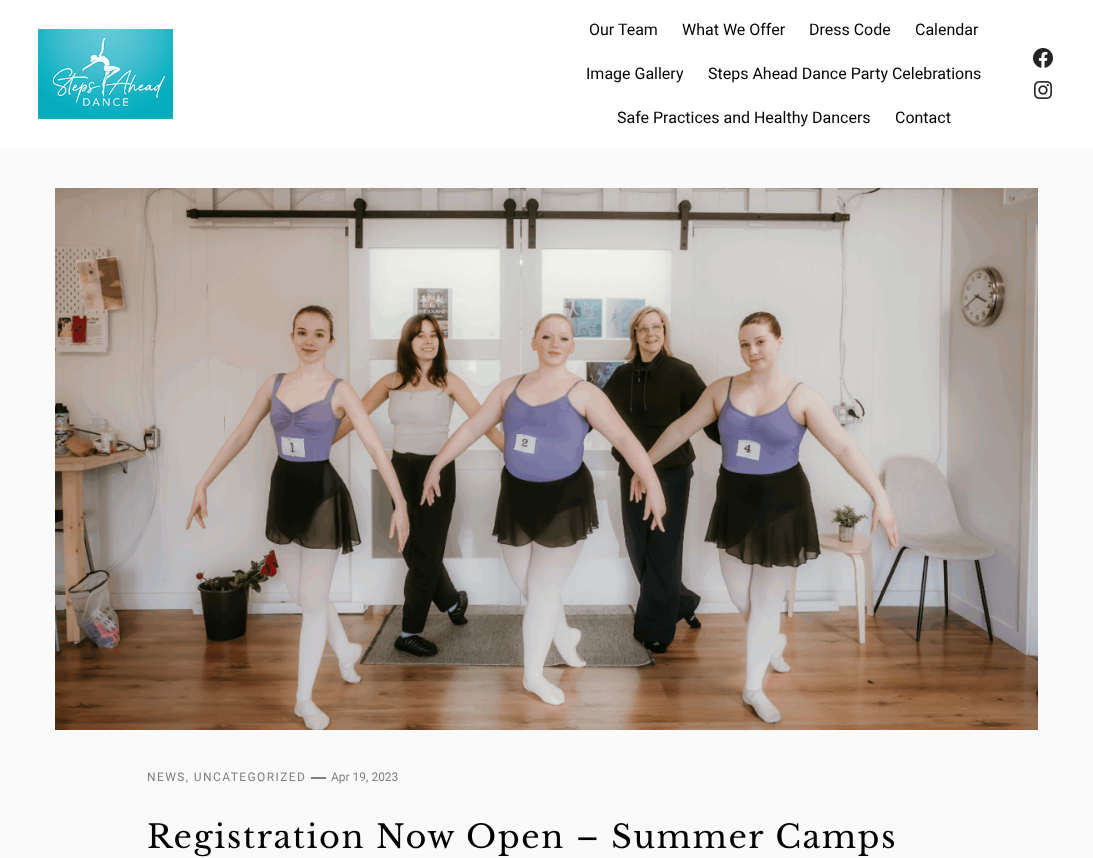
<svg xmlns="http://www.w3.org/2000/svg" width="1093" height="858">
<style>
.a{font:16px Roboto;fill:#000}
.b{font:12px Roboto;letter-spacing:1.4px;fill:#808080}
.c{font:12px Roboto;fill:#808080}
.d{font:32px Libre Baskerville;letter-spacing:1.6px;fill:#000}
</style>
<rect width="100%" height="100%" fill="#fafafa"/>
<path fill="#fff" d="M0 0h1093v148H0z"/>
<image href="1.png" x="38" y="29" width="135" height="90"/>
<image href="2.png" x="1033" y="48" width="20" height="20"/>
<image href="3.png" x="1034" y="81" width="18" height="18"/>
<image href="4.png" x="55" y="188" width="983" height="542"/>
<path fill="#808080" d="M311 777h15v2H311z"/>
<text class="a" x="589" y="35">Our Team</text>
<text class="a" x="682" y="35">What We Offer</text>
<text class="a" x="809" y="35">Dress Code</text>
<text class="a" x="915" y="35">Calendar</text>
<text class="a" x="586" y="79">Image Gallery</text>
<text class="a" x="708" y="79">Steps Ahead Dance Party Celebrations</text>
<text class="a" x="617" y="123">Safe Practices and Healthy Dancers</text>
<text class="a" x="895" y="123">Contact</text>
<text class="b" x="147" y="781">NEWS, UNCATEGORIZED</text>
<text class="c" x="331" y="781">Apr 19, 2023</text>
<text class="d" x="147" y="848">Registration Now Open – Summer Camps</text>
</svg>
